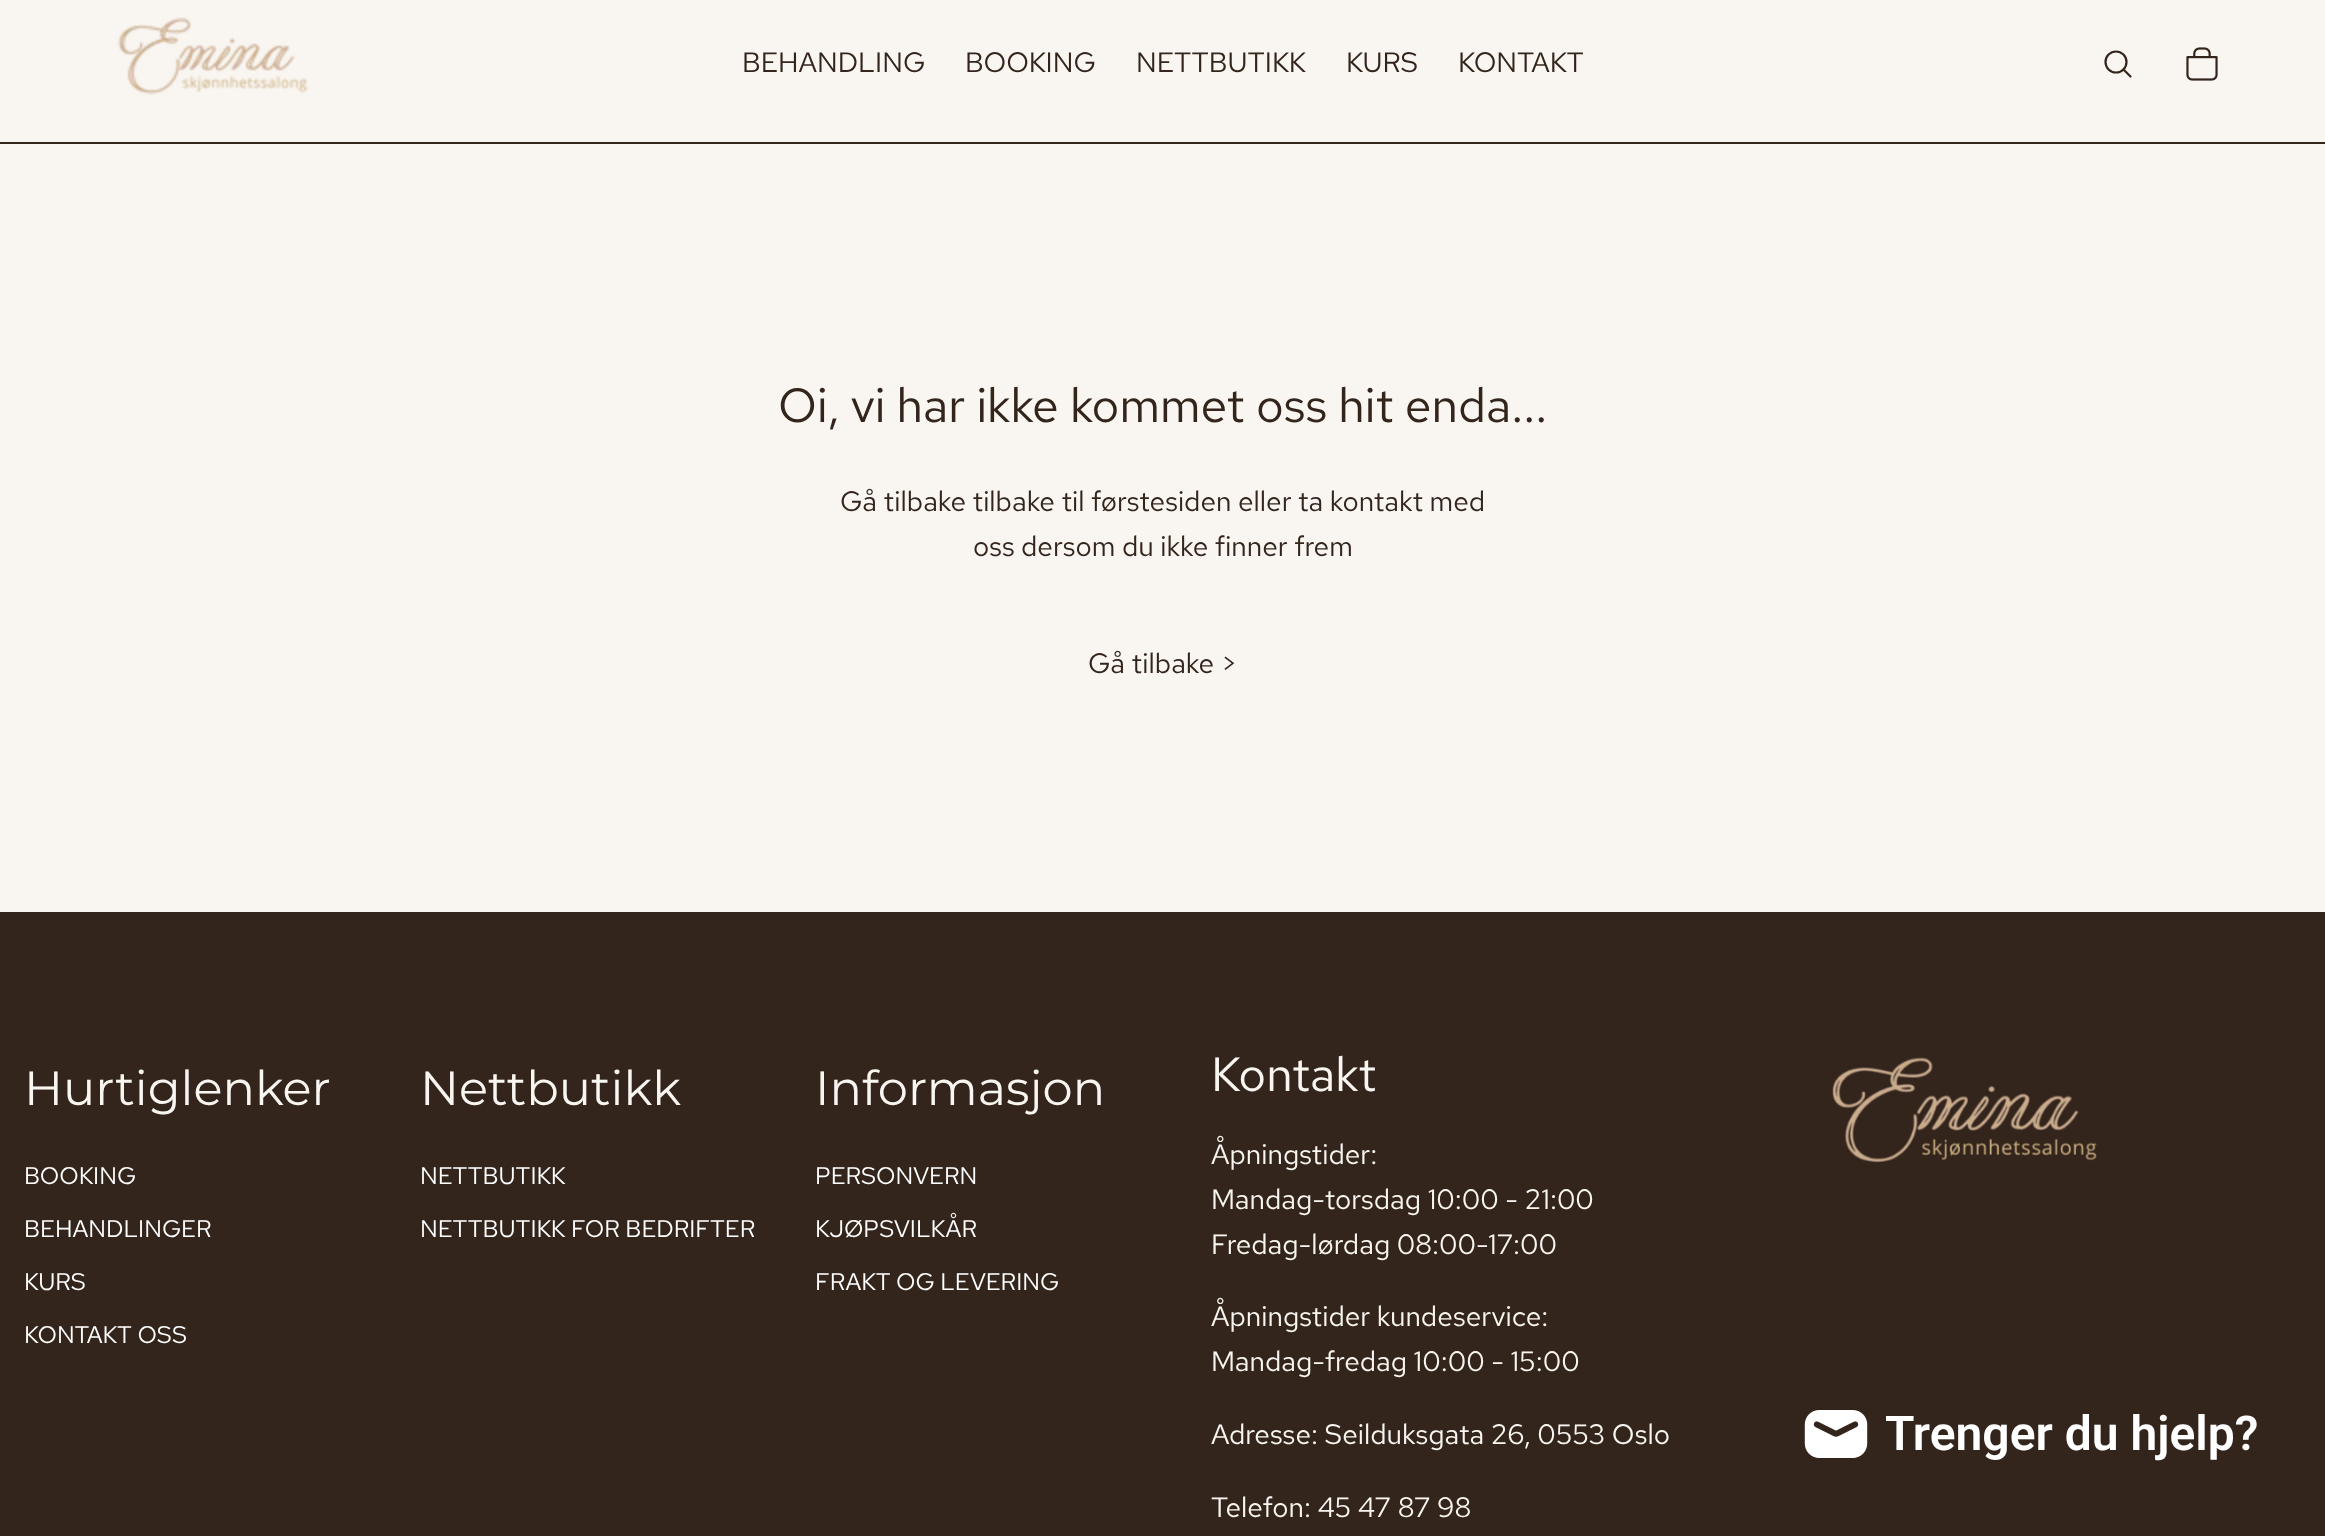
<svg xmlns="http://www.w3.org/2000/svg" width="2325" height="1536">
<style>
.a{font:28px Red Hat Text;fill:#33251c}
.b{font:48px Red Hat Text;fill:#33251c}
.c{font:48px Montserrat;fill:#f9f6f1}
.d{font:24px Red Hat Text;fill:#fff}
.e{font:48px Red Hat Text;fill:#f9f6f1}
.f{font:28px Red Hat Text;fill:#f9f6f1}
.g{font:600 48px Roboto;fill:#fff}
</style>
<rect width="100%" height="100%" fill="#f9f6f1"/>
<path fill="#33251c" d="M0 142h2325v2H0z"/>
<image href="1.png" x="117" y="17" width="192" height="78"/>
<circle fill="none" stroke="#33251c" stroke-width="2.2" cx="2116" cy="62" r="10.5"/>
<path fill="none" stroke="#33251c" stroke-width="2.2" stroke-linecap="round" stroke-linejoin="round" d="M2123.5 69.5l7 7"/>
<image href="2.png" x="2186" y="47" width="32" height="34"/>
<path fill="#33251c" d="M0 912h2325v624H0z"/>
<image href="3.png" x="1832" y="1057" width="265" height="106"/>
<image href="4.png" x="1804" y="1410" width="64" height="48"/>
<text class="a" x="742" y="72">BEHANDLING</text>
<text class="a" x="965" y="72">BOOKING</text>
<text class="a" x="1136" y="72">NETTBUTIKK</text>
<text class="a" x="1346" y="72">KURS</text>
<text class="a" x="1458" y="72">KONTAKT</text>
<text class="b" x="778" y="422">Oi, vi har ikke kommet oss hit enda...</text>
<text class="a" x="840" y="511">Gå tilbake tilbake til førstesiden eller ta kontakt med</text>
<text class="a" x="973" y="556">oss dersom du ikke finner frem</text>
<text class="a" x="1088" y="673">Gå tilbake &gt;</text>
<text class="c" x="24" y="1105">Hurtiglenker</text>
<text class="d" x="24" y="1184">BOOKING</text>
<text class="d" x="24" y="1237">BEHANDLINGER</text>
<text class="d" x="24" y="1290">KURS</text>
<text class="d" x="24" y="1343">KONTAKT OSS</text>
<text class="c" x="420" y="1105">Nettbutikk</text>
<text class="d" x="420" y="1184">NETTBUTIKK</text>
<text class="d" x="420" y="1237">NETTBUTIKK FOR BEDRIFTER</text>
<text class="c" x="815" y="1105">Informasjon</text>
<text class="d" x="815" y="1184">PERSONVERN</text>
<text class="d" x="815" y="1237">KJØPSVILKÅR</text>
<text class="d" x="815" y="1290">FRAKT OG LEVERING</text>
<text class="e" x="1211" y="1091">Kontakt</text>
<text class="f" x="1211" y="1164">Åpningstider:</text>
<text class="f" x="1211" y="1209">Mandag-torsdag 10:00 - 21:00</text>
<text class="f" x="1211" y="1254">Fredag-lørdag 08:00-17:00</text>
<text class="f" x="1211" y="1326">Åpningstider kundeservice:</text>
<text class="f" x="1211" y="1371">Mandag-fredag 10:00 - 15:00</text>
<text class="f" x="1211" y="1444">Adresse: Seilduksgata 26, 0553 Oslo</text>
<text class="f" x="1211" y="1517">Telefon: 45 47 87 98</text>
<text class="g" x="1885" y="1450">Trenger du hjelp?</text>
</svg>
